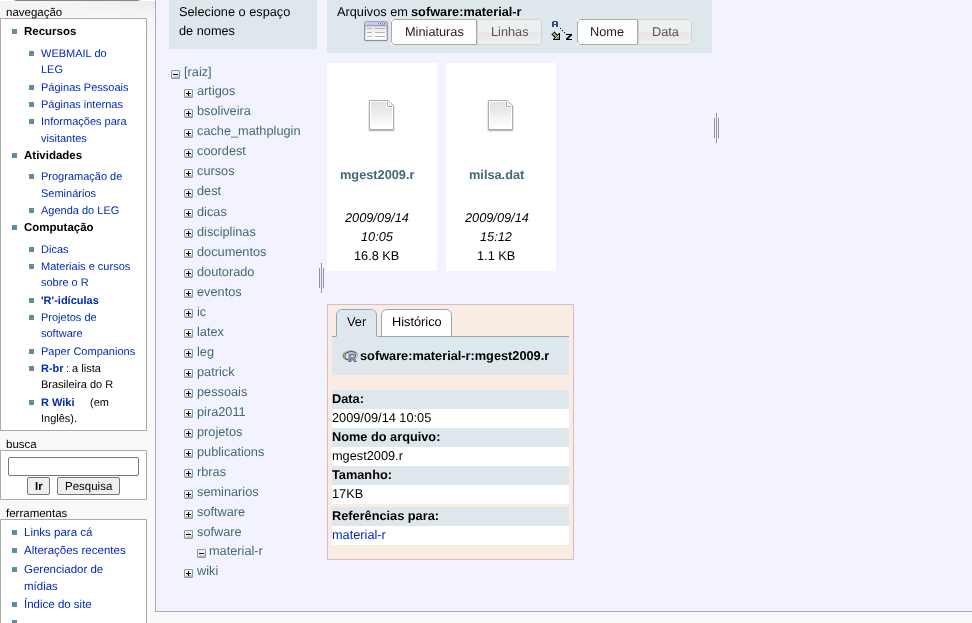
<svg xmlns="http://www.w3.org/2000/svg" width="972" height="623">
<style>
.a{font:11.5px Liberation Sans;fill:#000}
.b{font:bold 11.5px Liberation Sans;fill:#000}
.c{font:11px Liberation Sans;fill:#002bb8}
.d{font:bold 11px Liberation Sans;fill:#002bb8}
.e{font:11px Liberation Sans;fill:#000}
.f{font:11.5px Liberation Sans;fill:#002bb8}
.g{font:12.75px Liberation Sans;fill:#000}
.h{font:12.75px Liberation Sans;fill:#436976}
.i{font:bold 12.75px Liberation Sans;fill:#000}
.j{font:12.75px Liberation Sans;fill:#212121}
.k{font:12.75px Liberation Sans;fill:#555}
.l{font:bold 12.75px Liberation Sans;fill:#436976}
.m{font:italic 12.75px Liberation Sans;fill:#000}
.n{font:12.75px Liberation Sans;fill:#002bb8}
</style>
<rect width="100%" height="100%" fill="#f9f9f9"/>
<image href="1.png" x="0" y="1" width="155" height="39"/>
<image href="2.png" x="0" y="0" width="155" height="1"/>
<path fill="#fff" stroke="#aaa" d="M0.5 18.5h146v412H0.5z"/>
<path fill="#638c9c" d="M12 29h5v5H12z"/>
<path fill="#638c9c" d="M29 51h5v5H29z"/>
<path fill="#638c9c" d="M29 85h5v5H29z"/>
<path fill="#638c9c" d="M29 102h5v5H29z"/>
<path fill="#638c9c" d="M29 119h5v5H29z"/>
<path fill="#638c9c" d="M12 153h5v5H12z"/>
<path fill="#638c9c" d="M29 174h5v5H29z"/>
<path fill="#638c9c" d="M29 208h5v5H29z"/>
<path fill="#638c9c" d="M12 225h5v5H12z"/>
<path fill="#638c9c" d="M29 247h5v5H29z"/>
<path fill="#638c9c" d="M29 264h5v5H29z"/>
<path fill="#638c9c" d="M29 298h5v5H29z"/>
<path fill="#638c9c" d="M29 315h5v5H29z"/>
<path fill="#638c9c" d="M29 349h5v5H29z"/>
<path fill="#638c9c" d="M29 366h5v5H29z"/>
<path fill="#638c9c" d="M29 400h5v5H29z"/>
<path fill="#fff" stroke="#aaa" d="M0.5 450.5h146v49H0.5z"/>
<rect fill="none" stroke="#767676" x="8.5" y="457.5" width="130" height="18" rx="1.5"/>
<rect fill="#efefef" stroke="#767676" x="27.5" y="477.5" width="22" height="17" rx="1.5"/>
<rect fill="#efefef" stroke="#767676" x="57.5" y="477.5" width="62" height="17" rx="1.5"/>
<path fill="#fff" stroke="#aaa" d="M0.5 519.5h146v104H0.5z"/>
<path fill="#638c9c" d="M12 530h5v5H12z"/>
<path fill="#638c9c" d="M12 548h5v5H12z"/>
<path fill="#638c9c" d="M12 567h5v5H12z"/>
<path fill="#638c9c" d="M12 602h5v5H12z"/>
<path fill="#638c9c" d="M12 620h5v3H12z"/>
<path fill="#f3f3ff" d="M156 0h816v611H156z"/>
<path fill="#aaa" d="M155 611h817v1H155z"/>
<path fill="#aaa" d="M155 0h1v612H155z"/>
<path fill="#dee7ec" d="M169 0h148v49H169z"/>
<image href="3.png" x="171" y="70" width="9" height="9"/>
<image href="4.png" x="184" y="89" width="9" height="9"/>
<image href="4.png" x="184" y="109" width="9" height="9"/>
<image href="4.png" x="184" y="129" width="9" height="9"/>
<image href="4.png" x="184" y="149" width="9" height="9"/>
<image href="4.png" x="184" y="169" width="9" height="9"/>
<image href="4.png" x="184" y="189" width="9" height="9"/>
<image href="4.png" x="184" y="209" width="9" height="9"/>
<image href="4.png" x="184" y="229" width="9" height="9"/>
<image href="4.png" x="184" y="249" width="9" height="9"/>
<image href="4.png" x="184" y="269" width="9" height="9"/>
<image href="4.png" x="184" y="289" width="9" height="9"/>
<image href="4.png" x="184" y="309" width="9" height="9"/>
<image href="4.png" x="184" y="329" width="9" height="9"/>
<image href="4.png" x="184" y="349" width="9" height="9"/>
<image href="4.png" x="184" y="369" width="9" height="9"/>
<image href="4.png" x="184" y="389" width="9" height="9"/>
<image href="4.png" x="184" y="409" width="9" height="9"/>
<image href="4.png" x="184" y="429" width="9" height="9"/>
<image href="4.png" x="184" y="449" width="9" height="9"/>
<image href="4.png" x="184" y="469" width="9" height="9"/>
<image href="4.png" x="184" y="490" width="9" height="9"/>
<image href="4.png" x="184" y="510" width="9" height="9"/>
<image href="3.png" x="184" y="530" width="9" height="9"/>
<image href="3.png" x="197" y="549" width="9" height="9"/>
<image href="4.png" x="184" y="569" width="9" height="9"/>
<image href="5.png" x="319" y="262" width="5" height="31"/>
<path fill="#dee7ec" d="M327 0h385v53H327z"/>
<image href="6.png" x="364" y="21" width="24" height="21"/>
<path fill="#fff" d="M391 19h85v26H391z"/>
<path fill="none" stroke="#aaa" d="M395 19.5h81.5v25h-81.5c-2 0-3.5-1.5-3.5-3.5v-18c0-2 1.5-3.5 3.5-3.5z"/>
<image href="7.png" x="478" y="19" width="64" height="26"/>
<path fill="none" stroke="#d3d3d3" d="M477.5 19.5h60.5c2 0 3.5 1.5 3.5 3.5v18c0 2-1.5 3.5-3.5 3.5h-60.5z"/>
<image href="8.png" x="551" y="21" width="21" height="19"/>
<path fill="#fff" d="M577 19h60v26H577z"/>
<path fill="none" stroke="#aaa" d="M581 19.5h56.5v25h-56.5c-2 0-3.5-1.5-3.5-3.5v-18c0-2 1.5-3.5 3.5-3.5z"/>
<image href="9.png" x="639" y="19" width="53" height="26"/>
<path fill="none" stroke="#d3d3d3" d="M638.5 19.5h49.5c2 0 3.5 1.5 3.5 3.5v18c0 2-1.5 3.5-3.5 3.5h-49.5z"/>
<image href="5.png" x="714" y="112" width="5" height="31"/>
<path fill="#fff" d="M327 63h110v208H327z"/>
<image href="10.png" x="368" y="100" width="27" height="32"/>
<path fill="#fff" d="M446 63h110v208H446z"/>
<image href="10.png" x="487" y="100" width="27" height="32"/>
<path fill="#f8ece4" stroke="#dbb" d="M327.5 304.5h246v255H327.5z"/>
<path fill="#fff" stroke="#8cacbb" d="M387 309.5h59c3 0 5.5 2.5 5.5 5.5v21.5h-70v-21.5c0-3 2.5-5.5 5.5-5.5z"/>
<path fill="#8cacbb" d="M332 336h237v1H332z"/>
<path fill="#dee7ec" d="M342 309h29c3.5 0 6 2.5 6 6v22h-41v-22c0-3.5 2.5-6 6-6z"/>
<path fill="#8cacbb" d="M342 309c-1.5 0-3 1-4 2l.5 .5c.5-1 2-1.5 3.5-1.5h29c1.5 0 3 .5 3.5 1.5l.5-.5c-1-1-2.5-2-4-2z"/>
<path fill="#8cacbb" d="M377 337v-22c0-1.5-1-3-2-4l-.5 .5c1 .5 1.5 2 1.5 3.5v21z"/>
<path fill="#dee7ec" d="M377 337l-1-1h-39l-1 1z"/>
<path fill="#8cacbb" d="M336 337l1-1v-21c0-1.5 .5-3 1.5-3.5l-.5-.5c-1 1-2 2.5-2 4z"/>
<path fill="#dee7ec" d="M332 337h237v38H332z"/>
<image href="11.png" x="342" y="350" width="16" height="12"/>
<path fill="#dee7ec" d="M332 390h237v19H332z"/>
<path fill="#fff" d="M332 409h237v19H332z"/>
<path fill="#dee7ec" d="M332 428h237v19H332z"/>
<path fill="#fff" d="M332 447h237v19H332z"/>
<path fill="#dee7ec" d="M332 466h237v19H332z"/>
<path fill="#fff" d="M332 485h237v19H332z"/>
<path fill="#dee7ec" d="M332 507h237v19H332z"/>
<path fill="#fff" d="M332 526h237v19H332z"/>
<text class="a" x="6" y="16">navegação</text>
<text class="b" x="24" y="35">Recursos</text>
<text class="c" x="41" y="57">WEBMAIL do</text>
<text class="c" x="41" y="73">LEG</text>
<text class="c" x="41" y="91">Páginas Pessoais</text>
<text class="c" x="41" y="108">Páginas internas</text>
<text class="c" x="41" y="125">Informações para</text>
<text class="c" x="41" y="142">visitantes</text>
<text class="b" x="24" y="159">Atividades</text>
<text class="c" x="41" y="180">Programação de</text>
<text class="c" x="41" y="197">Seminários</text>
<text class="c" x="41" y="214">Agenda do LEG</text>
<text class="b" x="24" y="231">Computação</text>
<text class="c" x="41" y="253">Dicas</text>
<text class="c" x="41" y="270">Materiais e cursos</text>
<text class="c" x="41" y="286">sobre o R</text>
<text class="d" x="41" y="304">'R'-idículas</text>
<text class="c" x="41" y="321">Projetos de</text>
<text class="c" x="41" y="337">software</text>
<text class="c" x="41" y="355">Paper Companions</text>
<text class="d" x="41" y="372">R-br</text>
<text class="e" x="66" y="372">: a lista</text>
<text class="e" x="41" y="388">Brasileira do R</text>
<text class="d" x="41" y="406">R Wiki</text>
<text class="e" x="90" y="406">(em</text>
<text class="e" x="41" y="422">Inglês).</text>
<text class="a" x="6" y="448">busca</text>
<text class="b" x="35" y="490">Ir</text>
<text class="a" x="65" y="490">Pesquisa</text>
<text class="a" x="6" y="517">ferramentas</text>
<text class="f" x="24" y="536">Links para cá</text>
<text class="f" x="24" y="554">Alterações recentes</text>
<text class="f" x="24" y="573">Gerenciador de</text>
<text class="f" x="24" y="590">mídias</text>
<text class="f" x="24" y="608">Índice do site</text>
<text class="g" x="179" y="16">Selecione o espaço</text>
<text class="g" x="179" y="35">de nomes</text>
<text class="h" x="184" y="76">[raiz]</text>
<text class="h" x="197" y="95">artigos</text>
<text class="h" x="197" y="115">bsoliveira</text>
<text class="h" x="197" y="135">cache_mathplugin</text>
<text class="h" x="197" y="155">coordest</text>
<text class="h" x="197" y="175">cursos</text>
<text class="h" x="197" y="195">dest</text>
<text class="h" x="197" y="216">dicas</text>
<text class="h" x="197" y="236">disciplinas</text>
<text class="h" x="197" y="256">documentos</text>
<text class="h" x="197" y="276">doutorado</text>
<text class="h" x="197" y="296">eventos</text>
<text class="h" x="197" y="316">ic</text>
<text class="h" x="197" y="336">latex</text>
<text class="h" x="197" y="356">leg</text>
<text class="h" x="197" y="376">patrick</text>
<text class="h" x="197" y="396">pessoais</text>
<text class="h" x="197" y="416">pira2011</text>
<text class="h" x="197" y="436">projetos</text>
<text class="h" x="197" y="456">publications</text>
<text class="h" x="197" y="476">rbras</text>
<text class="h" x="197" y="496">seminarios</text>
<text class="h" x="197" y="516">software</text>
<text class="h" x="197" y="536">sofware</text>
<text class="h" x="209" y="555">material-r</text>
<text class="h" x="197" y="575">wiki</text>
<text class="g" x="337" y="16">Arquivos em</text>
<text class="i" x="411" y="16">sofware:material-r</text>
<text class="j" x="405" y="36">Miniaturas</text>
<text class="k" x="491" y="36">Linhas</text>
<text class="j" x="590" y="36">Nome</text>
<text class="k" x="652" y="36">Data</text>
<text class="l" x="340" y="179">mgest2009.r</text>
<text class="m" x="345" y="222">2009/09/14</text>
<text class="m" x="361" y="241">10:05</text>
<text class="g" x="354" y="260">16.8 KB</text>
<text class="l" x="469" y="179">milsa.dat</text>
<text class="m" x="465" y="222">2009/09/14</text>
<text class="m" x="480" y="241">15:12</text>
<text class="g" x="477" y="260">1.1 KB</text>
<text class="g" x="347" y="326">Ver</text>
<text class="g" x="392" y="326">Histórico</text>
<text class="i" x="360" y="360">sofware:material-r:mgest2009.r</text>
<text class="i" x="332" y="403">Data:</text>
<text class="g" x="332" y="422">2009/09/14 10:05</text>
<text class="i" x="332" y="441">Nome do arquivo:</text>
<text class="g" x="332" y="460">mgest2009.r</text>
<text class="i" x="332" y="479">Tamanho:</text>
<text class="g" x="332" y="498">17KB</text>
<text class="i" x="332" y="520">Referências para:</text>
<text class="n" x="332" y="539">material-r</text>
</svg>
